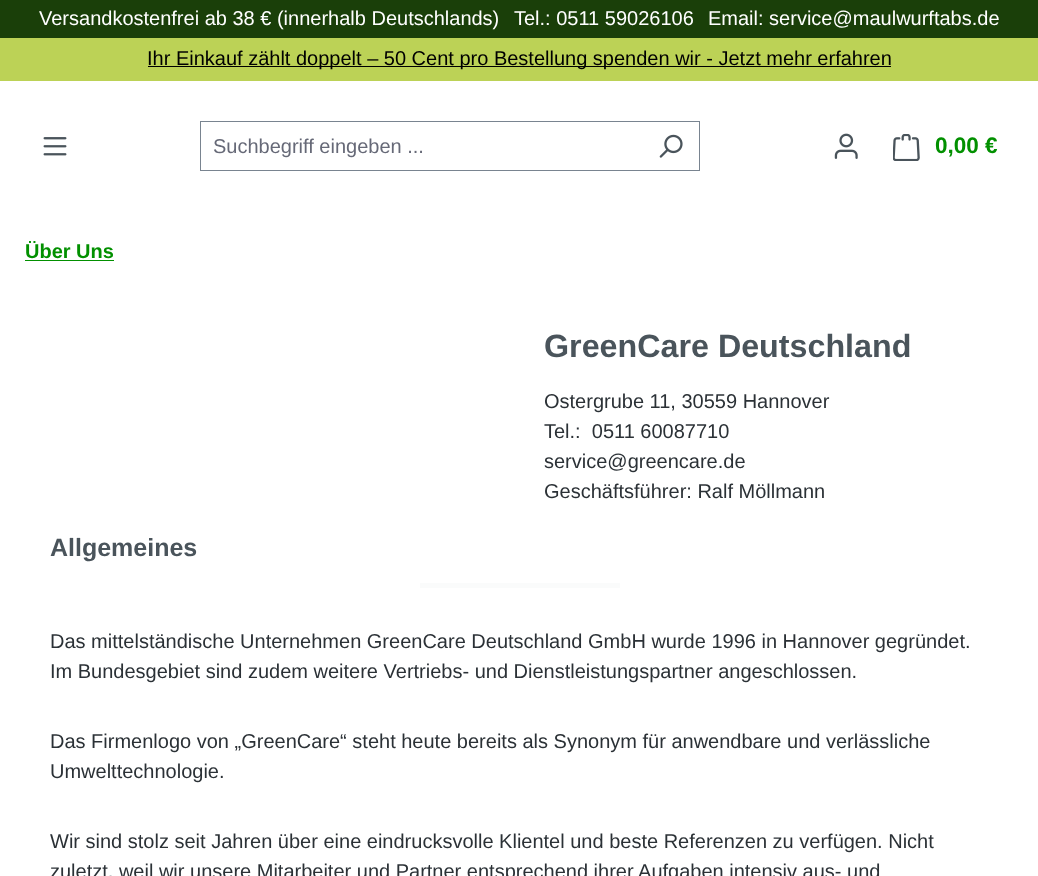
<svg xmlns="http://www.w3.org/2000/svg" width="1038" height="876">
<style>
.a{font:20px Liberation Sans;fill:#fff}
.b{font:20px Liberation Sans;fill:#000}
.c{font:20px Liberation Sans;fill:#666977}
.d{font:bold 22.5px Liberation Sans;fill:#029000}
.e{font:bold 20px Liberation Sans;fill:#029000}
.f{font:bold 32.25px Liberation Sans;fill:#4a545b}
.g{font:20px Liberation Sans;fill:#2b3136}
.h{font:bold 25px Liberation Sans;fill:#4a545b}
</style>
<rect width="100%" height="100%" fill="#fff"/>
<path fill="#1a3f09" d="M0 0h1038v38H0z"/>
<path fill="#bcd256" d="M0 38h1038v43H0z"/>
<path fill="#000" d="M148 66h743v1H148z"/>
<image href="1.png" x="43" y="137" width="24" height="19"/>
<path fill="#798490" d="M200 121h500v1H200z"/>
<path fill="#798490" d="M200 170h443v1H200z"/>
<path fill="#798490" d="M200 121h1v50H200z"/>
<path fill="#798490" d="M699 121h1v50H699z"/>
<path fill="#798490" d="M641 170h59v1H641z"/>
<image href="2.png" x="659" y="134" width="24" height="24"/>
<image href="3.png" x="834" y="133" width="24" height="26"/>
<image href="4.png" x="893" y="134" width="27" height="27"/>
<path fill="#029000" d="M25 260h89v1H25z"/>
<path fill="#fafbfb" d="M420 583h200v5H420z"/>
<text class="a" x="39" y="25">Versandkostenfrei ab 38 € (innerhalb Deutschlands)</text>
<text class="a" x="514" y="25">Tel.: 0511 59026106</text>
<text class="a" x="708" y="25">Email: service@maulwurftabs.de</text>
<text class="b" x="147" y="65">Ihr Einkauf zählt doppelt – 50 Cent pro Bestellung spenden wir - Jetzt mehr erfahren</text>
<text class="c" x="213" y="153">Suchbegriff eingeben ...</text>
<text class="d" x="935" y="153">0,00 €</text>
<text class="e" x="25" y="258">Über Uns</text>
<text class="f" x="544" y="357">GreenCare Deutschland</text>
<text class="g" x="544" y="408">Ostergrube 11, 30559 Hannover</text>
<text class="g" xml:space="preserve" x="544" y="438">Tel.:  0511 60087710</text>
<text class="g" x="544" y="468">service@greencare.de</text>
<text class="g" x="544" y="498">Geschäftsführer: Ralf Möllmann</text>
<text class="h" x="50" y="556">Allgemeines</text>
<text class="g" x="50" y="648">Das mittelständische Unternehmen GreenCare Deutschland GmbH wurde 1996 in Hannover gegründet.</text>
<text class="g" x="50" y="678">Im Bundesgebiet sind zudem weitere Vertriebs- und Dienstleistungspartner angeschlossen.</text>
<text class="g" x="50" y="748">Das Firmenlogo von „GreenCare“ steht heute bereits als Synonym für anwendbare und verlässliche</text>
<text class="g" x="50" y="778">Umwelttechnologie.</text>
<text class="g" x="50" y="848">Wir sind stolz seit Jahren über eine eindrucksvolle Klientel und beste Referenzen zu verfügen. Nicht</text>
<text class="g" x="50" y="878">zuletzt, weil wir unsere Mitarbeiter und Partner entsprechend ihrer Aufgaben intensiv aus- und</text>
</svg>
